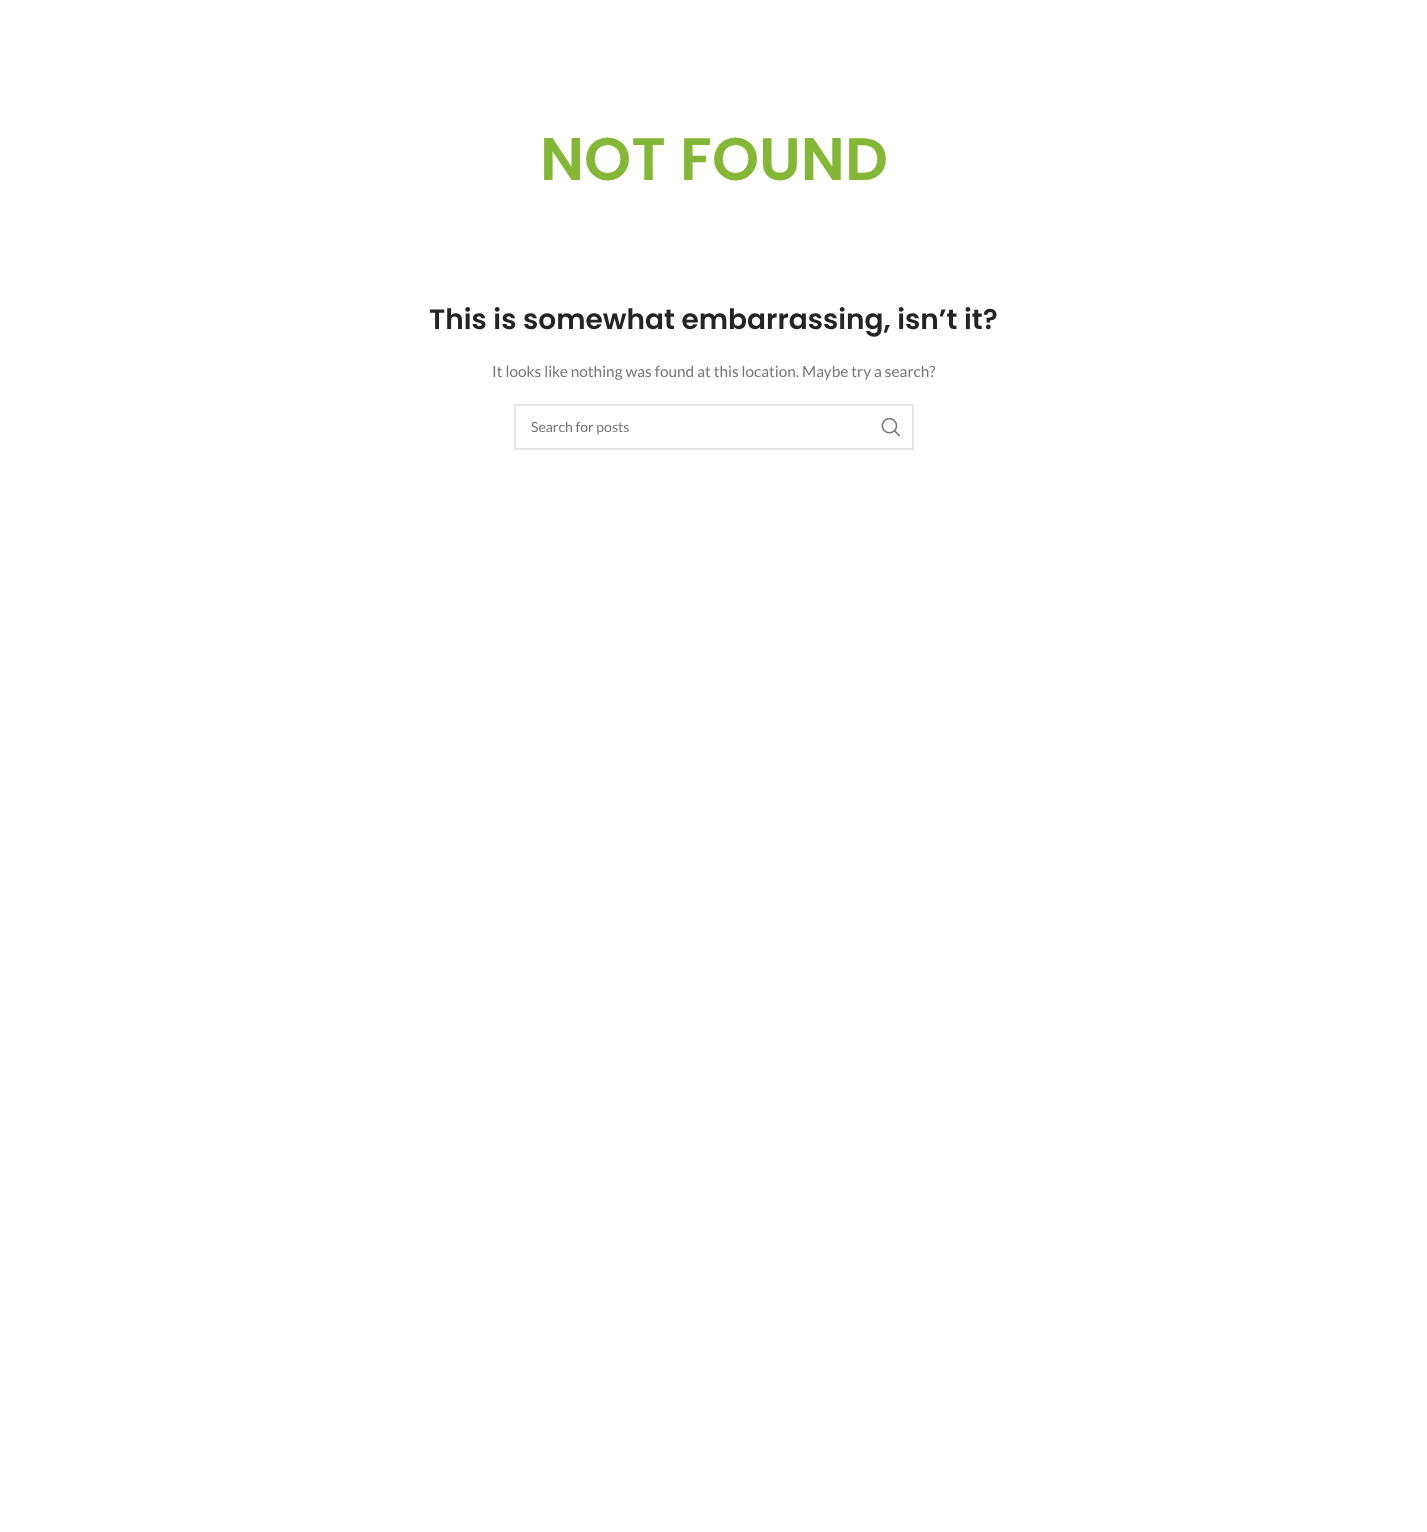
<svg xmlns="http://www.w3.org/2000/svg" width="1427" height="1532">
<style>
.a{font:600 60px Poppins;fill:#83b735}
.b{font:600 28px Poppins;fill:#242424}
.c{font:15.4px Lato;fill:#767676}
.d{font:14px Lato;fill:#767676}
</style>
<rect width="100%" height="100%" fill="#fff"/>
<path fill="none" stroke="#e6e6e6" stroke-width="2" d="M515 405h398v44H515z"/>
<image href="1.png" x="881" y="417" width="20" height="20"/>
<text class="a" x="540" y="180">NOT FOUND</text>
<text class="b" x="429" y="329">This is somewhat embarrassing, isn’t it?</text>
<text class="c" x="492" y="377">It looks like nothing was found at this location. Maybe try a search?</text>
<text class="d" x="531" y="432">Search for posts</text>
</svg>
